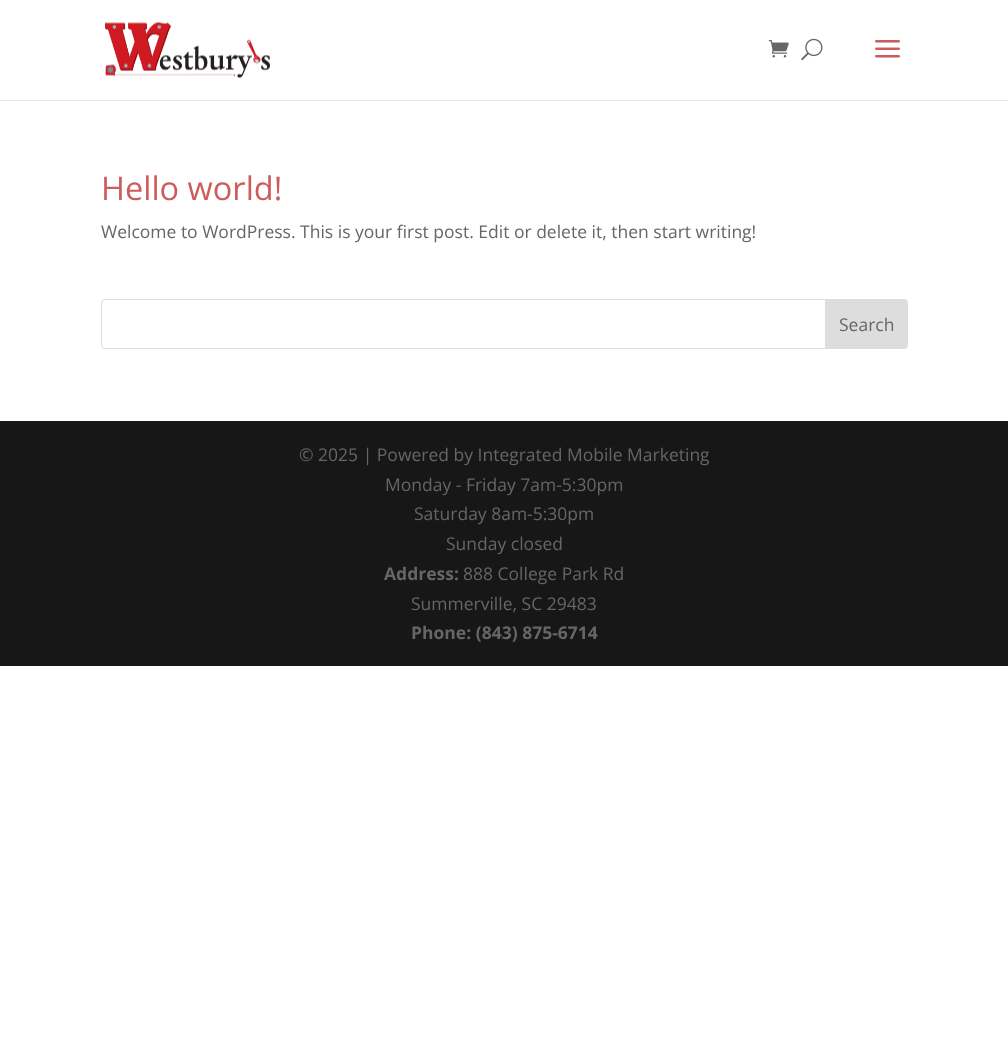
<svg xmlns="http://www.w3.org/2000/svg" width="1008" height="1052">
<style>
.a{font:32.5px Open Sans;fill:#cd5c5c}
.b{font:17.5px Open Sans;fill:#666}
.c{font:bold 17.5px Open Sans;fill:#666}
</style>
<rect width="100%" height="100%" fill="#fff"/>
<path fill="#e6e6e6" d="M0 100v1h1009v-100v99z"/>
<image href="1.png" x="105" y="22" width="165" height="56"/>
<image href="2.png" x="768" y="40" width="21" height="18"/>
<image href="3.png" x="801" y="38" width="22" height="23"/>
<image href="4.png" x="875" y="40" width="25" height="18"/>
<rect fill="none" stroke="#ddd" x="101.5" y="299.5" width="806" height="49" rx="3.5"/>
<path fill="#ddd" stroke="#ddd" d="M825.5 299.5h78.5c2 0 3.5 1.5 3.5 3.5v42c0 2-1.5 3.5-3.5 3.5h-78.5z"/>
<path fill="#171717" d="M0 421h1008v245H0z"/>
<text class="a" x="101" y="200">Hello world!</text>
<text class="b" x="101" y="238">Welcome to WordPress. This is your first post. Edit or delete it, then start writing!</text>
<text class="b" x="839" y="331">Search</text>
<text class="b" x="299" y="461">© 2025 | Powered by Integrated Mobile Marketing</text>
<text class="b" x="385" y="491">Monday - Friday 7am-5:30pm</text>
<text class="b" x="414" y="520">Saturday 8am-5:30pm</text>
<text class="b" x="446" y="550">Sunday closed</text>
<text class="c" x="384" y="580">Address:</text>
<text class="b" x="463" y="580">888 College Park Rd</text>
<text class="b" x="411" y="610">Summerville, SC 29483</text>
<text class="c" x="411" y="639">Phone: (843) 875-6714</text>
</svg>
